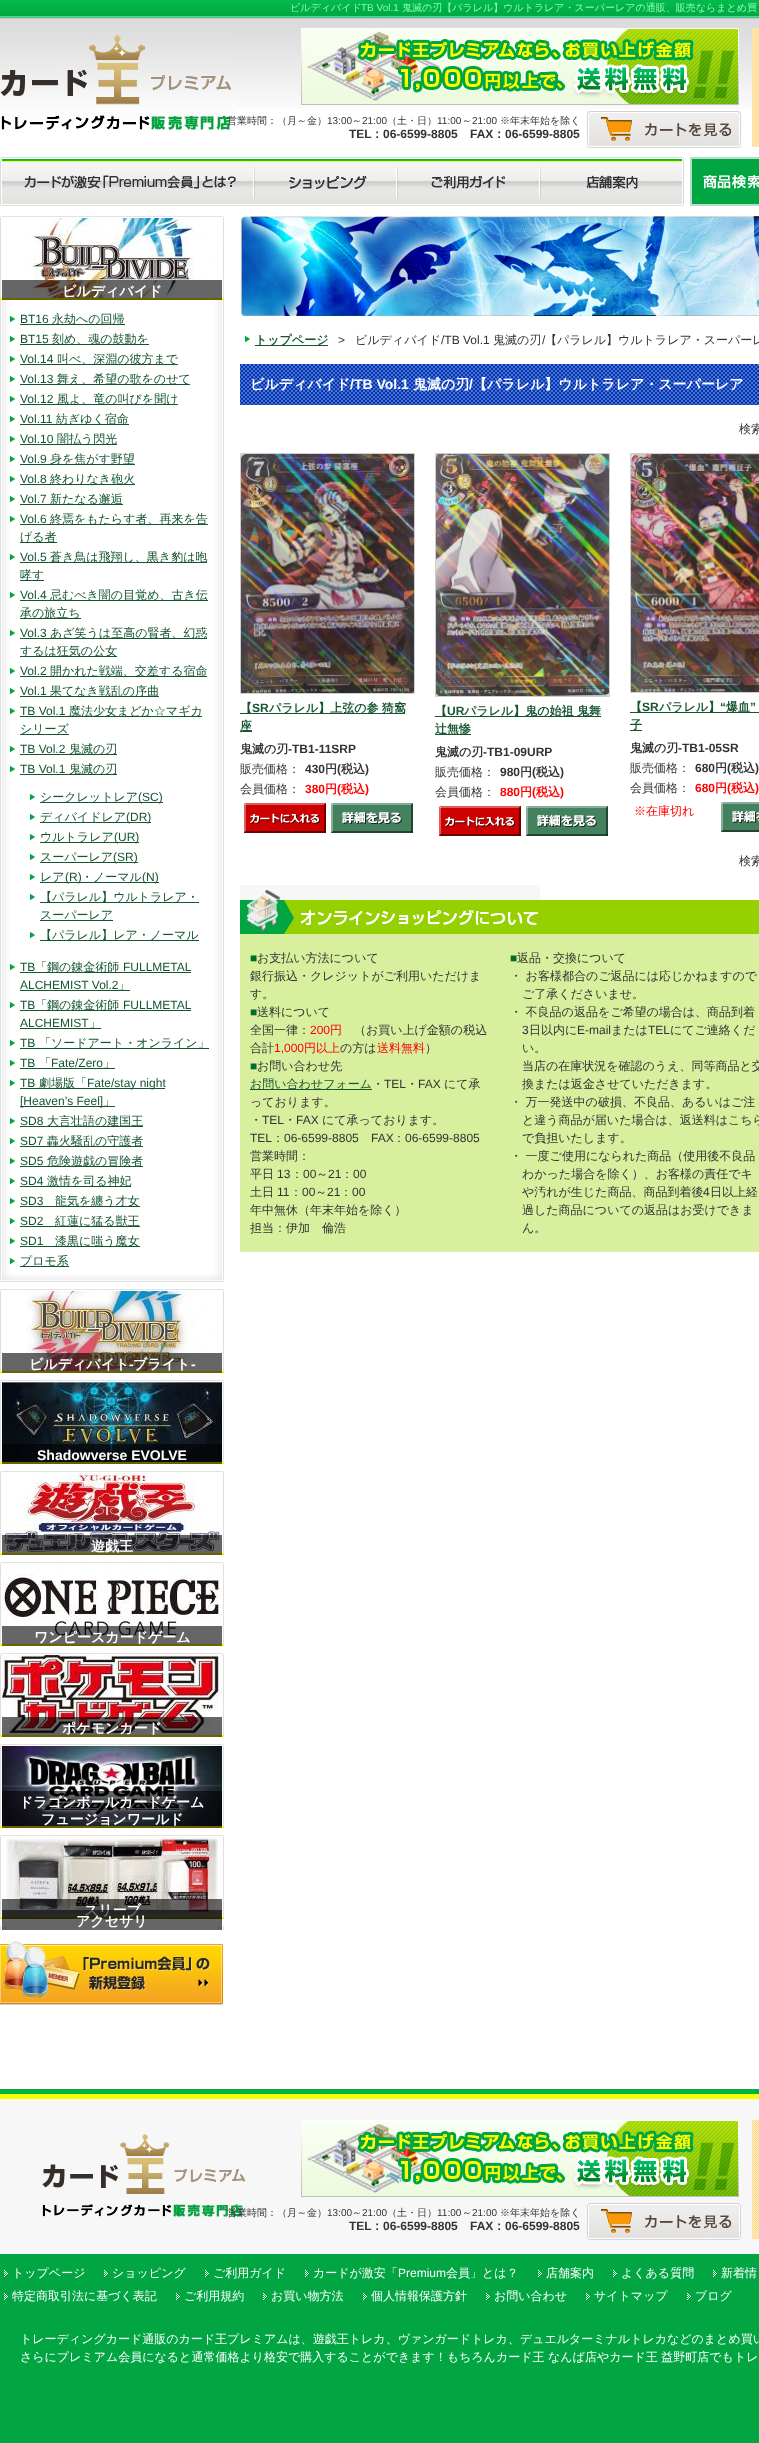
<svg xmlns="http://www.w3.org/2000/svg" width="759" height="2443">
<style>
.a{font:500 10px WenQuanYi Zen Hei;fill:#89feb7}
.b{font:10px Liberation Sans;fill:#89feb7}
.c{font:500 10px WenQuanYi Zen Hei;fill:#333}
.d{font:10px Liberation Sans;fill:#333}
.e{font:bold 12px Liberation Sans;fill:#333}
.f{font:bold 12px WenQuanYi Zen Hei;fill:#333}
.g{font:bold 14px WenQuanYi Zen Hei;fill:#fff}
.h{font:12px Liberation Sans;fill:#155530}
.i{font:500 12px WenQuanYi Zen Hei;fill:#155530}
.j{font:bold 14px Liberation Sans;fill:#fff}
.k{font:bold 12px WenQuanYi Zen Hei;fill:#155530}
.l{font:12px Liberation Sans;fill:#333}
.m{font:500 12px WenQuanYi Zen Hei;fill:#333}
.n{font:bold 12px Liberation Sans;fill:#155530}
.o{font:bold 12px Liberation Sans;fill:#f00}
.p{font:bold 12px WenQuanYi Zen Hei;fill:#f00}
.q{font:500 12px WenQuanYi Zen Hei;fill:#f00}
.r{font:12px Liberation Sans;fill:#006d29}
.s{font:12px Liberation Sans;fill:#f00}
.t{font:500 12px WenQuanYi Zen Hei;fill:#fff}
.u{font:12px Liberation Sans;fill:#fff}
</style>
<rect width="100%" height="100%" fill="#01a542"/>
<path fill="#fff" d="M0 109h759v1980H0z"/>
<image href="1.png" x="0" y="0" width="759" height="109"/>
<image href="2.png" x="0" y="33" width="235" height="100"/>
<image href="3.png" x="301" y="28" width="438" height="77"/>
<image href="4.png" x="752" y="28" width="7" height="119"/>
<image href="5.png" x="587" y="111" width="154" height="37"/>
<image href="6.png" x="0" y="157" width="254" height="49"/>
<image href="7.png" x="254" y="157" width="143" height="49"/>
<image href="8.png" x="397" y="157" width="143" height="49"/>
<image href="9.png" x="540" y="157" width="144" height="49"/>
<path fill="#01a542" d="M692 159h67v45H692z"/>
<path fill="#b4e0c9" d="M690 157h69v2H690z"/>
<path fill="#b4e0c9" d="M690 204h69v2H690z"/>
<path fill="#b4e0c9" d="M690 157h2v49H690z"/>
<image href="10.png" x="700" y="174" width="59" height="15"/>
<image href="11.png" x="0" y="270" width="224" height="1004"/>
<image href="12.png" x="0" y="216" width="224" height="82"/>
<path fill="#fff701" d="M0 298h224v2H0z"/>
<path fill="#00000099" d="M2 280h220v20H2z"/>
<image href="13.png" x="0" y="1274" width="224" height="8"/>
<image href="14.png" x="10" y="316" width="5" height="6"/>
<path fill="#155530" d="M20 324h105v1H20z"/>
<image href="14.png" x="10" y="336" width="5" height="6"/>
<path fill="#155530" d="M20 344h129v1H20z"/>
<image href="14.png" x="10" y="356" width="5" height="6"/>
<path fill="#155530" d="M20 364h158v1H20z"/>
<image href="14.png" x="10" y="376" width="5" height="6"/>
<path fill="#155530" d="M20 384h170v1H20z"/>
<image href="14.png" x="10" y="396" width="5" height="6"/>
<path fill="#155530" d="M20 404h158v1H20z"/>
<image href="14.png" x="10" y="416" width="5" height="6"/>
<path fill="#155530" d="M20 424h109v1H20z"/>
<image href="14.png" x="10" y="436" width="5" height="6"/>
<path fill="#155530" d="M20 444h97v1H20z"/>
<image href="14.png" x="10" y="456" width="5" height="6"/>
<path fill="#155530" d="M20 464h115v1H20z"/>
<image href="14.png" x="10" y="476" width="5" height="6"/>
<path fill="#155530" d="M20 484h115v1H20z"/>
<image href="14.png" x="10" y="496" width="5" height="6"/>
<path fill="#155530" d="M20 504h103v1H20z"/>
<image href="14.png" x="10" y="516" width="5" height="6"/>
<path fill="#155530" d="M20 524h188v1H20z"/>
<path fill="#155530" d="M20 542h37v1H20z"/>
<image href="14.png" x="10" y="554" width="5" height="6"/>
<path fill="#155530" d="M20 562h187v1H20z"/>
<path fill="#155530" d="M20 580h24v1H20z"/>
<image href="14.png" x="10" y="592" width="5" height="6"/>
<path fill="#155530" d="M20 600h188v1H20z"/>
<path fill="#155530" d="M20 618h61v1H20z"/>
<image href="14.png" x="10" y="630" width="5" height="6"/>
<path fill="#155530" d="M20 638h187v1H20z"/>
<path fill="#155530" d="M20 656h97v1H20z"/>
<image href="14.png" x="10" y="668" width="5" height="6"/>
<path fill="#155530" d="M20 676h187v1H20z"/>
<image href="14.png" x="10" y="688" width="5" height="6"/>
<path fill="#155530" d="M20 696h139v1H20z"/>
<image href="14.png" x="10" y="708" width="5" height="6"/>
<path fill="#155530" d="M20 716h182v1H20z"/>
<path fill="#155530" d="M20 734h49v1H20z"/>
<image href="14.png" x="10" y="746" width="5" height="6"/>
<path fill="#155530" d="M20 754h97v1H20z"/>
<image href="14.png" x="10" y="766" width="5" height="6"/>
<path fill="#155530" d="M20 774h97v1H20z"/>
<image href="14.png" x="30" y="794" width="5" height="6"/>
<path fill="#155530" d="M40 802h123v1H40z"/>
<image href="14.png" x="30" y="814" width="5" height="6"/>
<path fill="#155530" d="M40 822h111v1H40z"/>
<image href="14.png" x="30" y="834" width="5" height="6"/>
<path fill="#155530" d="M40 842h99v1H40z"/>
<image href="14.png" x="30" y="854" width="5" height="6"/>
<path fill="#155530" d="M40 862h98v1H40z"/>
<image href="14.png" x="30" y="874" width="5" height="6"/>
<path fill="#155530" d="M40 882h119v1H40z"/>
<image href="14.png" x="30" y="894" width="5" height="6"/>
<path fill="#155530" d="M40 902h159v1H40z"/>
<path fill="#155530" d="M40 920h73v1H40z"/>
<image href="14.png" x="30" y="932" width="5" height="6"/>
<path fill="#155530" d="M40 940h159v1H40z"/>
<image href="14.png" x="10" y="964" width="5" height="6"/>
<path fill="#155530" d="M20 972h171v1H20z"/>
<path fill="#155530" d="M20 990h110v1H20z"/>
<image href="14.png" x="10" y="1002" width="5" height="6"/>
<path fill="#155530" d="M20 1010h171v1H20z"/>
<path fill="#155530" d="M20 1028h81v1H20z"/>
<image href="14.png" x="10" y="1040" width="5" height="6"/>
<path fill="#155530" d="M20 1048h189v1H20z"/>
<image href="14.png" x="10" y="1060" width="5" height="6"/>
<path fill="#155530" d="M20 1068h95v1H20z"/>
<image href="14.png" x="10" y="1080" width="5" height="6"/>
<path fill="#155530" d="M20 1088h145v1H20z"/>
<path fill="#155530" d="M20 1106h95v1H20z"/>
<image href="14.png" x="10" y="1118" width="5" height="6"/>
<path fill="#155530" d="M20 1126h123v1H20z"/>
<image href="14.png" x="10" y="1138" width="5" height="6"/>
<path fill="#155530" d="M20 1146h123v1H20z"/>
<image href="14.png" x="10" y="1158" width="5" height="6"/>
<path fill="#155530" d="M20 1166h123v1H20z"/>
<image href="14.png" x="10" y="1178" width="5" height="6"/>
<path fill="#155530" d="M20 1186h111v1H20z"/>
<image href="14.png" x="10" y="1198" width="5" height="6"/>
<path fill="#155530" d="M20 1206h120v1H20z"/>
<image href="14.png" x="10" y="1218" width="5" height="6"/>
<path fill="#155530" d="M20 1226h120v1H20z"/>
<image href="14.png" x="10" y="1238" width="5" height="6"/>
<path fill="#155530" d="M20 1246h120v1H20z"/>
<image href="14.png" x="10" y="1258" width="5" height="6"/>
<path fill="#155530" d="M20 1266h49v1H20z"/>
<image href="15.png" x="0" y="1343" width="224" height="28"/>
<image href="16.png" x="0" y="1289" width="224" height="82"/>
<path fill="#fff701" d="M0 1371h224v2H0z"/>
<path fill="#00000099" d="M2 1353h220v20H2z"/>
<image href="15.png" x="0" y="1434" width="224" height="28"/>
<image href="17.png" x="0" y="1380" width="224" height="82"/>
<path fill="#fff701" d="M0 1462h224v2H0z"/>
<path fill="#00000099" d="M2 1444h220v20H2z"/>
<image href="15.png" x="0" y="1525" width="224" height="28"/>
<image href="18.png" x="0" y="1471" width="224" height="82"/>
<path fill="#fff701" d="M0 1553h224v2H0z"/>
<path fill="#00000099" d="M2 1535h220v20H2z"/>
<image href="15.png" x="0" y="1616" width="224" height="28"/>
<image href="19.png" x="0" y="1562" width="224" height="82"/>
<path fill="#fff701" d="M0 1644h224v2H0z"/>
<path fill="#00000099" d="M2 1626h220v20H2z"/>
<image href="15.png" x="0" y="1707" width="224" height="28"/>
<image href="20.png" x="0" y="1653" width="224" height="82"/>
<path fill="#fff701" d="M0 1735h224v2H0z"/>
<path fill="#00000099" d="M2 1717h220v20H2z"/>
<image href="15.png" x="0" y="1798" width="224" height="28"/>
<image href="21.png" x="0" y="1744" width="224" height="82"/>
<path fill="#fff701" d="M0 1826h224v2H0z"/>
<path fill="#00000099" d="M2 1791h220v37H2z"/>
<image href="15.png" x="0" y="1889" width="224" height="28"/>
<image href="22.png" x="0" y="1835" width="224" height="82"/>
<path fill="#fff701" d="M0 1917h224v2H0z"/>
<path fill="#00000099" d="M2 1899h220v20H2z"/>
<image href="23.png" x="0" y="1926" width="224" height="4"/>
<image href="24.png" x="0" y="1941" width="223" height="64"/>
<image href="25.png" x="240" y="216" width="519" height="100"/>
<image href="14.png" x="245" y="336" width="5" height="6"/>
<path fill="#155530" d="M255 345h73v1H255z"/>
<image href="26.png" x="240" y="364" width="519" height="41"/>
<path fill="none" stroke="#cfcfcf" d="M240.5 453.5h174v240H240.5z"/>
<image href="27.png" x="241" y="454" width="173" height="239"/>
<path fill="#155530" d="M240 713h165v1H240z"/>
<path fill="#155530" d="M240 731h12v1H240z"/>
<image href="28.png" x="244" y="803" width="82" height="30"/>
<image href="29.png" x="331" y="803" width="82" height="30"/>
<path fill="none" stroke="#cfcfcf" d="M435.5 453.5h174v243H435.5z"/>
<image href="30.png" x="436" y="454" width="173" height="242"/>
<path fill="#155530" d="M435 716h166v1H435z"/>
<path fill="#155530" d="M435 734h36v1H435z"/>
<image href="28.png" x="439" y="806" width="82" height="30"/>
<image href="29.png" x="526" y="806" width="82" height="30"/>
<path fill="none" stroke="#cfcfcf" d="M630.5 453.5h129v239H630.5z"/>
<image href="31.png" x="631" y="454" width="128" height="238"/>
<path fill="#155530" d="M630 712h129v1H630z"/>
<path fill="#155530" d="M630 730h12v1H630z"/>
<image href="32.png" x="721" y="802" width="38" height="30"/>
<path fill="#d8ef9d" d="M240 934h519v318H240z"/>
<image href="33.png" x="540" y="885" width="219" height="49"/>
<image href="34.png" x="240" y="885" width="300" height="49"/>
<path fill="#155530" d="M250 1089h122v1H250z"/>
<path fill="#f7f7f7" d="M0 2099h759v155H0z"/>
<image href="35.png" x="0" y="2089" width="759" height="10"/>
<image href="36.png" x="42" y="2134" width="203" height="86"/>
<image href="3.png" x="301" y="2120" width="438" height="77"/>
<image href="4.png" x="752" y="2120" width="7" height="119"/>
<image href="5.png" x="587" y="2203" width="154" height="37"/>
<image href="37.png" x="4" y="2270" width="4" height="7"/>
<image href="37.png" x="104" y="2270" width="4" height="7"/>
<image href="37.png" x="205" y="2270" width="4" height="7"/>
<image href="37.png" x="305" y="2270" width="4" height="7"/>
<image href="37.png" x="538" y="2270" width="4" height="7"/>
<image href="37.png" x="613" y="2270" width="4" height="7"/>
<image href="37.png" x="713" y="2270" width="4" height="7"/>
<image href="37.png" x="4" y="2293" width="4" height="7"/>
<image href="37.png" x="176" y="2293" width="4" height="7"/>
<image href="37.png" x="263" y="2293" width="4" height="7"/>
<image href="37.png" x="363" y="2293" width="4" height="7"/>
<image href="37.png" x="486" y="2293" width="4" height="7"/>
<image href="37.png" x="586" y="2293" width="4" height="7"/>
<image href="37.png" x="687" y="2293" width="4" height="7"/>
<text class="a" x="290" y="11">ビルディバイド</text>
<text class="b" x="361" y="11">TB Vol.1</text>
<text class="a" x="402" y="11">鬼滅の刃【パラレル】ウルトラレア・スーパーレアの通販、販売ならまとめ買</text>
<text class="c" x="227" y="124">営業時間：（月～金）</text>
<text class="d" x="327" y="124">13:00</text>
<text class="c" x="352" y="124">～</text>
<text class="d" x="362" y="124">21:00</text>
<text class="c" x="387" y="124">（土・日）</text>
<text class="d" x="437" y="124">11:00</text>
<text class="c" x="462" y="124">～</text>
<text class="d" x="472" y="124">21:00</text>
<text class="c" x="500" y="124">※年末年始を除く</text>
<text class="e" x="349" y="138">TEL</text>
<text class="f" x="371" y="138">：</text>
<text class="e" x="383" y="138">06-6599-8805</text>
<text class="e" x="470" y="138">FAX</text>
<text class="f" x="493" y="138">：</text>
<text class="e" x="505" y="138">06-6599-8805</text>
<text class="g" x="62" y="296">ビルディバイド</text>
<text class="h" x="20" y="323">BT16</text>
<text class="i" x="52" y="323">永劫への回帰</text>
<text class="h" x="20" y="343">BT15</text>
<text class="i" x="52" y="343">刻め、魂の鼓動を</text>
<text class="h" x="20" y="363">Vol.14</text>
<text class="i" x="57" y="363">叫べ、深淵の彼方まで</text>
<text class="h" x="20" y="383">Vol.13</text>
<text class="i" x="57" y="383">舞え、希望の歌をのせて</text>
<text class="h" x="20" y="403">Vol.12</text>
<text class="i" x="57" y="403">風よ、竜の叫びを聞け</text>
<text class="h" x="20" y="423">Vol.11</text>
<text class="i" x="56" y="423">紡ぎゆく宿命</text>
<text class="h" x="20" y="443">Vol.10</text>
<text class="i" x="57" y="443">闇払う閃光</text>
<text class="h" x="20" y="463">Vol.9</text>
<text class="i" x="50" y="463">身を焦がす野望</text>
<text class="h" x="20" y="483">Vol.8</text>
<text class="i" x="50" y="483">終わりなき砲火</text>
<text class="h" x="20" y="503">Vol.7</text>
<text class="i" x="50" y="503">新たなる邂逅</text>
<text class="h" x="20" y="523">Vol.6</text>
<text class="i" x="50" y="523">終焉をもたらす者、再来を告</text>
<text class="i" x="20" y="541">げる者</text>
<text class="h" x="20" y="561">Vol.5</text>
<text class="i" x="50" y="561">蒼き鳥は飛翔し、黒き豹は咆</text>
<text class="i" x="20" y="579">哮す</text>
<text class="h" x="20" y="599">Vol.4</text>
<text class="i" x="50" y="599">忌むべき闇の目覚め、古き伝</text>
<text class="i" x="20" y="617">承の旅立ち</text>
<text class="h" x="20" y="637">Vol.3</text>
<text class="i" x="50" y="637">あざ笑うは至高の賢者、幻惑</text>
<text class="i" x="20" y="655">するは狂気の公女</text>
<text class="h" x="20" y="675">Vol.2</text>
<text class="i" x="50" y="675">開かれた戦端、交差する宿命</text>
<text class="h" x="20" y="695">Vol.1</text>
<text class="i" x="50" y="695">果てなき戦乱の序曲</text>
<text class="h" x="20" y="715">TB Vol.1</text>
<text class="i" x="69" y="715">魔法少女まどか☆マギカ</text>
<text class="i" x="20" y="733">シリーズ</text>
<text class="h" x="20" y="753">TB Vol.2</text>
<text class="i" x="69" y="753">鬼滅の刃</text>
<text class="h" x="20" y="773">TB Vol.1</text>
<text class="i" x="69" y="773">鬼滅の刃</text>
<text class="i" x="40" y="801">シークレットレア</text>
<text class="h" x="138" y="801">(SC)</text>
<text class="i" x="40" y="821">ディバイドレア</text>
<text class="h" x="126" y="821">(DR)</text>
<text class="i" x="40" y="841">ウルトラレア</text>
<text class="h" x="114" y="841">(UR)</text>
<text class="i" x="40" y="861">スーパーレア</text>
<text class="h" x="113" y="861">(SR)</text>
<text class="i" x="40" y="881">レア</text>
<text class="h" x="65" y="881">(R)</text>
<text class="i" x="81" y="881">・ノーマル</text>
<text class="h" x="142" y="881">(N)</text>
<text class="i" x="40" y="901">【パラレル】ウルトラレア・</text>
<text class="i" x="40" y="919">スーパーレア</text>
<text class="i" x="40" y="939">【パラレル】レア・ノーマル</text>
<text class="h" x="20" y="971">TB</text>
<text class="i" x="35" y="971">「鋼の錬金術師</text>
<text class="h" x="123" y="971">FULLMETAL</text>
<text class="h" x="20" y="989">ALCHEMIST Vol.2</text>
<text class="i" x="118" y="989">」</text>
<text class="h" x="20" y="1009">TB</text>
<text class="i" x="35" y="1009">「鋼の錬金術師</text>
<text class="h" x="123" y="1009">FULLMETAL</text>
<text class="h" x="20" y="1027">ALCHEMIST</text>
<text class="i" x="89" y="1027">」</text>
<text class="h" x="20" y="1047">TB</text>
<text class="i" x="39" y="1047">「ソードアート・オンライン」</text>
<text class="h" x="20" y="1067">TB</text>
<text class="i" x="39" y="1067">「</text>
<text class="h" x="51" y="1067">Fate/Zero</text>
<text class="i" x="103" y="1067">」</text>
<text class="h" x="20" y="1087">TB</text>
<text class="i" x="39" y="1087">劇場版「</text>
<text class="h" x="87" y="1087">Fate/stay night</text>
<text class="h" x="20" y="1105">[Heaven’s Feel]</text>
<text class="i" x="103" y="1105">」</text>
<text class="h" x="20" y="1125">SD8</text>
<text class="i" x="47" y="1125">大言壮語の建国王</text>
<text class="h" x="20" y="1145">SD7</text>
<text class="i" x="47" y="1145">轟火騒乱の守護者</text>
<text class="h" x="20" y="1165">SD5</text>
<text class="i" x="47" y="1165">危険遊戯の冒険者</text>
<text class="h" x="20" y="1185">SD4</text>
<text class="i" x="47" y="1185">激情を司る神妃</text>
<text class="h" x="20" y="1205">SD3</text>
<text class="i" x="55" y="1205">龍気を纏う才女</text>
<text class="h" x="20" y="1225">SD2</text>
<text class="i" x="55" y="1225">紅蓮に猛る獣王</text>
<text class="h" x="20" y="1245">SD1</text>
<text class="i" x="55" y="1245">漆黒に嗤う魔女</text>
<text class="i" x="20" y="1265">プロモ系</text>
<text class="g" x="29" y="1369">ビルディバイト</text>
<text class="j" x="129" y="1369">-</text>
<text class="g" x="133" y="1369">ブライト</text>
<text class="j" x="191" y="1369">-</text>
<text class="j" x="37" y="1460">Shadowverse EVOLVE</text>
<text class="g" x="91" y="1551">遊戯王</text>
<text class="g" x="34" y="1642">ワンピースカードゲーム</text>
<text class="g" x="62" y="1733">ポケモンカード</text>
<text class="g" x="19" y="1807">ドラゴンボールカードゲーム</text>
<text class="g" x="41" y="1824">フュージョンワールド</text>
<text class="g" x="84" y="1915">スリーブ</text>
<path fill="#00000099" d="M2 1910h220v20H2z"/>
<text class="g" x="76" y="1926">アクセサリ</text>
<text class="k" x="255" y="344">トップページ</text>
<text class="l" x="338" y="344">&gt;</text>
<text class="m" x="355" y="344">ビルディバイド</text>
<text class="l" x="441" y="344">/TB Vol.1</text>
<text class="m" x="493" y="344">鬼滅の刃 【パラレル】ウルトラレア・スーパーレ</text>
<text class="l" x="542" y="344">/</text>
<text class="g" x="250" y="389">ビルディバイド</text>
<text class="j" x="350" y="389">/TB Vol.1</text>
<text class="g" x="413" y="389">鬼滅の刃</text>
<text class="j" x="469" y="389">/</text>
<text class="g" x="473" y="389">【パラレル】ウルトラレア・スーパーレア</text>
<text class="m" x="739" y="433">検索</text>
<text class="k" x="240" y="712">【</text>
<text class="n" x="252" y="712">SR</text>
<text class="k" x="269" y="712">パラレル】上弦の参 猗窩</text>
<text class="k" x="240" y="730">座</text>
<text class="f" x="240" y="753">鬼滅の刃</text>
<text class="e" x="288" y="753">-TB1-11SRP</text>
<text class="m" x="240" y="773">販売価格：</text>
<text class="e" x="305" y="773">430</text>
<text class="f" x="325" y="773">円</text>
<text class="e" x="337" y="773">(</text>
<text class="f" x="341" y="773">税込</text>
<text class="e" x="365" y="773">)</text>
<text class="m" x="240" y="793">会員価格：</text>
<text class="o" x="305" y="793">380</text>
<text class="p" x="325" y="793">円</text>
<text class="o" x="337" y="793">(</text>
<text class="p" x="341" y="793">税込</text>
<text class="o" x="365" y="793">)</text>
<text class="k" x="435" y="715">【</text>
<text class="n" x="447" y="715">UR</text>
<text class="k" x="464" y="715">パラレル】鬼の始祖 鬼舞</text>
<text class="k" x="435" y="733">辻無惨</text>
<text class="f" x="435" y="756">鬼滅の刃</text>
<text class="e" x="483" y="756">-TB1-09URP</text>
<text class="m" x="435" y="776">販売価格：</text>
<text class="e" x="500" y="776">980</text>
<text class="f" x="520" y="776">円</text>
<text class="e" x="532" y="776">(</text>
<text class="f" x="536" y="776">税込</text>
<text class="e" x="560" y="776">)</text>
<text class="m" x="435" y="796">会員価格：</text>
<text class="o" x="500" y="796">880</text>
<text class="p" x="520" y="796">円</text>
<text class="o" x="532" y="796">(</text>
<text class="p" x="536" y="796">税込</text>
<text class="o" x="560" y="796">)</text>
<text class="k" x="630" y="711">【</text>
<text class="n" x="642" y="711">SR</text>
<text class="k" x="659" y="711">パラレル】</text>
<text class="n" x="720" y="711">“</text>
<text class="k" x="726" y="711">爆血</text>
<text class="n" x="750" y="711">”</text>
<text class="k" x="630" y="729">子</text>
<text class="f" x="630" y="752">鬼滅の刃</text>
<text class="e" x="678" y="752">-TB1-05SR</text>
<text class="m" x="630" y="772">販売価格：</text>
<text class="e" x="695" y="772">680</text>
<text class="f" x="715" y="772">円</text>
<text class="e" x="727" y="772">(</text>
<text class="f" x="731" y="772">税込</text>
<text class="e" x="755" y="772">)</text>
<text class="m" x="630" y="792">会員価格：</text>
<text class="o" x="695" y="792">680</text>
<text class="p" x="715" y="792">円</text>
<text class="o" x="727" y="792">(</text>
<text class="p" x="731" y="792">税込</text>
<text class="o" x="755" y="792">)</text>
<text class="q" x="634" y="815">※在庫切れ</text>
<text class="m" x="739" y="865">検索</text>
<text class="r" x="250" y="962">■</text>
<text class="m" x="257" y="962">お支払い方法について</text>
<text class="m" x="250" y="980">銀行振込・クレジットがご利用いただけま</text>
<text class="m" x="250" y="998">す。</text>
<text class="r" x="250" y="1016">■</text>
<text class="m" x="257" y="1016">送料について</text>
<text class="m" x="250" y="1034">全国一律：</text>
<text class="s" x="310" y="1034">200</text>
<text class="q" x="330" y="1034">円</text>
<text class="m" x="354" y="1034">（お買い上げ金額の税込</text>
<text class="m" x="250" y="1052">合計</text>
<text class="s" x="274" y="1052">1,000</text>
<text class="q" x="304" y="1052">円以上</text>
<text class="m" x="340" y="1052">の方は</text>
<text class="q" x="377" y="1052">送料無料</text>
<text class="m" x="425" y="1052">）</text>
<text class="r" x="250" y="1070">■</text>
<text class="m" x="257" y="1070">お問い合わせ先</text>
<text class="i" x="250" y="1088">お問い合わせフォーム</text>
<text class="m" x="372" y="1088">・</text>
<text class="l" x="384" y="1088">TEL</text>
<text class="m" x="406" y="1088">・</text>
<text class="l" x="418" y="1088">FAX</text>
<text class="m" x="444" y="1088">にて承</text>
<text class="m" x="250" y="1106">っております。</text>
<text class="m" x="250" y="1124">・</text>
<text class="l" x="262" y="1124">TEL</text>
<text class="m" x="284" y="1124">・</text>
<text class="l" x="296" y="1124">FAX</text>
<text class="m" x="322" y="1124">にて承っております。</text>
<text class="l" x="250" y="1142">TEL</text>
<text class="m" x="272" y="1142">：</text>
<text class="l" x="284" y="1142">06-6599-8805</text>
<text class="l" x="371" y="1142">FAX</text>
<text class="m" x="393" y="1142">：</text>
<text class="l" x="405" y="1142">06-6599-8805</text>
<text class="m" x="250" y="1160">営業時間：</text>
<text class="m" x="250" y="1178">平日</text>
<text class="l" x="277" y="1178">13</text>
<text class="m" x="291" y="1178">：</text>
<text class="l" x="303" y="1178">00</text>
<text class="m" x="316" y="1178">～</text>
<text class="l" x="328" y="1178">21</text>
<text class="m" x="341" y="1178">：</text>
<text class="l" x="353" y="1178">00</text>
<text class="m" x="250" y="1196">土日</text>
<text class="l" x="277" y="1196">11</text>
<text class="m" x="290" y="1196">：</text>
<text class="l" x="302" y="1196">00</text>
<text class="m" x="315" y="1196">～</text>
<text class="l" x="327" y="1196">21</text>
<text class="m" x="340" y="1196">：</text>
<text class="l" x="352" y="1196">00</text>
<text class="m" x="250" y="1214">年中無休（年末年始を除く）</text>
<text class="m" x="250" y="1232">担当：伊加　倫浩</text>
<text class="r" x="510" y="962">■</text>
<text class="m" x="517" y="962">返品・交換について</text>
<text class="m" x="510" y="980">・ お客様都合のご返品には応じかねますので</text>
<text class="m" x="522" y="998">ご了承くださいませ。</text>
<text class="m" x="510" y="1016">・ 不良品の返品をご希望の場合は、商品到着</text>
<text class="l" x="522" y="1034">3</text>
<text class="m" x="529" y="1034">日以内に</text>
<text class="l" x="577" y="1034">E-mail</text>
<text class="m" x="611" y="1034">または</text>
<text class="l" x="648" y="1034">TEL</text>
<text class="m" x="670" y="1034">にてご連絡くだ</text>
<text class="m" x="522" y="1052">い。</text>
<text class="m" x="522" y="1070">当店の在庫状況を確認のうえ、同等商品と交</text>
<text class="m" x="522" y="1088">換または返金させていただきます。</text>
<text class="m" x="510" y="1106">・ 万一発送中の破損、不良品、あるいはご注</text>
<text class="m" x="522" y="1124">と違う商品が届いた場合は、返送料はこちら</text>
<text class="m" x="522" y="1142">で負担いたします。</text>
<text class="m" x="510" y="1160">・ 一度ご使用になられた商品（使用後不良品</text>
<text class="m" x="522" y="1178">わかった場合を除く）、お客様の責任でキ</text>
<text class="m" x="522" y="1196">や汚れが生じた商品、商品到着後</text>
<text class="l" x="703" y="1196">4</text>
<text class="m" x="710" y="1196">日以上経</text>
<text class="m" x="522" y="1214">過した商品についての返品はお受けできま</text>
<text class="m" x="522" y="1232">ん。</text>
<text class="c" x="227" y="2216">営業時間：（月～金）</text>
<text class="d" x="327" y="2216">13:00</text>
<text class="c" x="352" y="2216">～</text>
<text class="d" x="362" y="2216">21:00</text>
<text class="c" x="387" y="2216">（土・日）</text>
<text class="d" x="437" y="2216">11:00</text>
<text class="c" x="462" y="2216">～</text>
<text class="d" x="472" y="2216">21:00</text>
<text class="c" x="500" y="2216">※年末年始を除く</text>
<text class="e" x="349" y="2230">TEL</text>
<text class="f" x="371" y="2230">：</text>
<text class="e" x="383" y="2230">06-6599-8805</text>
<text class="e" x="470" y="2230">FAX</text>
<text class="f" x="493" y="2230">：</text>
<text class="e" x="505" y="2230">06-6599-8805</text>
<text class="t" x="12" y="2277">トップページ</text>
<text class="t" x="112" y="2277">ショッピング</text>
<text class="t" x="213" y="2277">ご利用ガイド</text>
<text class="t" x="313" y="2277">カードが激安「</text>
<text class="u" x="398" y="2277">Premium</text>
<text class="t" x="446" y="2277">会員」とは？</text>
<text class="t" x="546" y="2277">店舗案内</text>
<text class="t" x="621" y="2277">よくある質問</text>
<text class="t" x="721" y="2277">新着情</text>
<text class="t" x="12" y="2300">特定商取引法に基づく表記</text>
<text class="t" x="184" y="2300">ご利用規約</text>
<text class="t" x="271" y="2300">お買い物方法</text>
<text class="t" x="371" y="2300">個人情報保護方針</text>
<text class="t" x="494" y="2300">お問い合わせ</text>
<text class="t" x="594" y="2300">サイトマップ</text>
<text class="t" x="695" y="2300">ブログ</text>
<text class="t" x="20" y="2343">トレーディングカード通販のカード王プレミアムは、遊戯王トレカ、ヴァンガードトレカ、デュエルターミナルトレカなどのまとめ買い</text>
<text class="t" x="20" y="2361">さらにプレミアム会員になると通常価格より格安で購入することができます！もちろんカード王 なんば店やカード王 益野町店でもトレ</text>
</svg>
